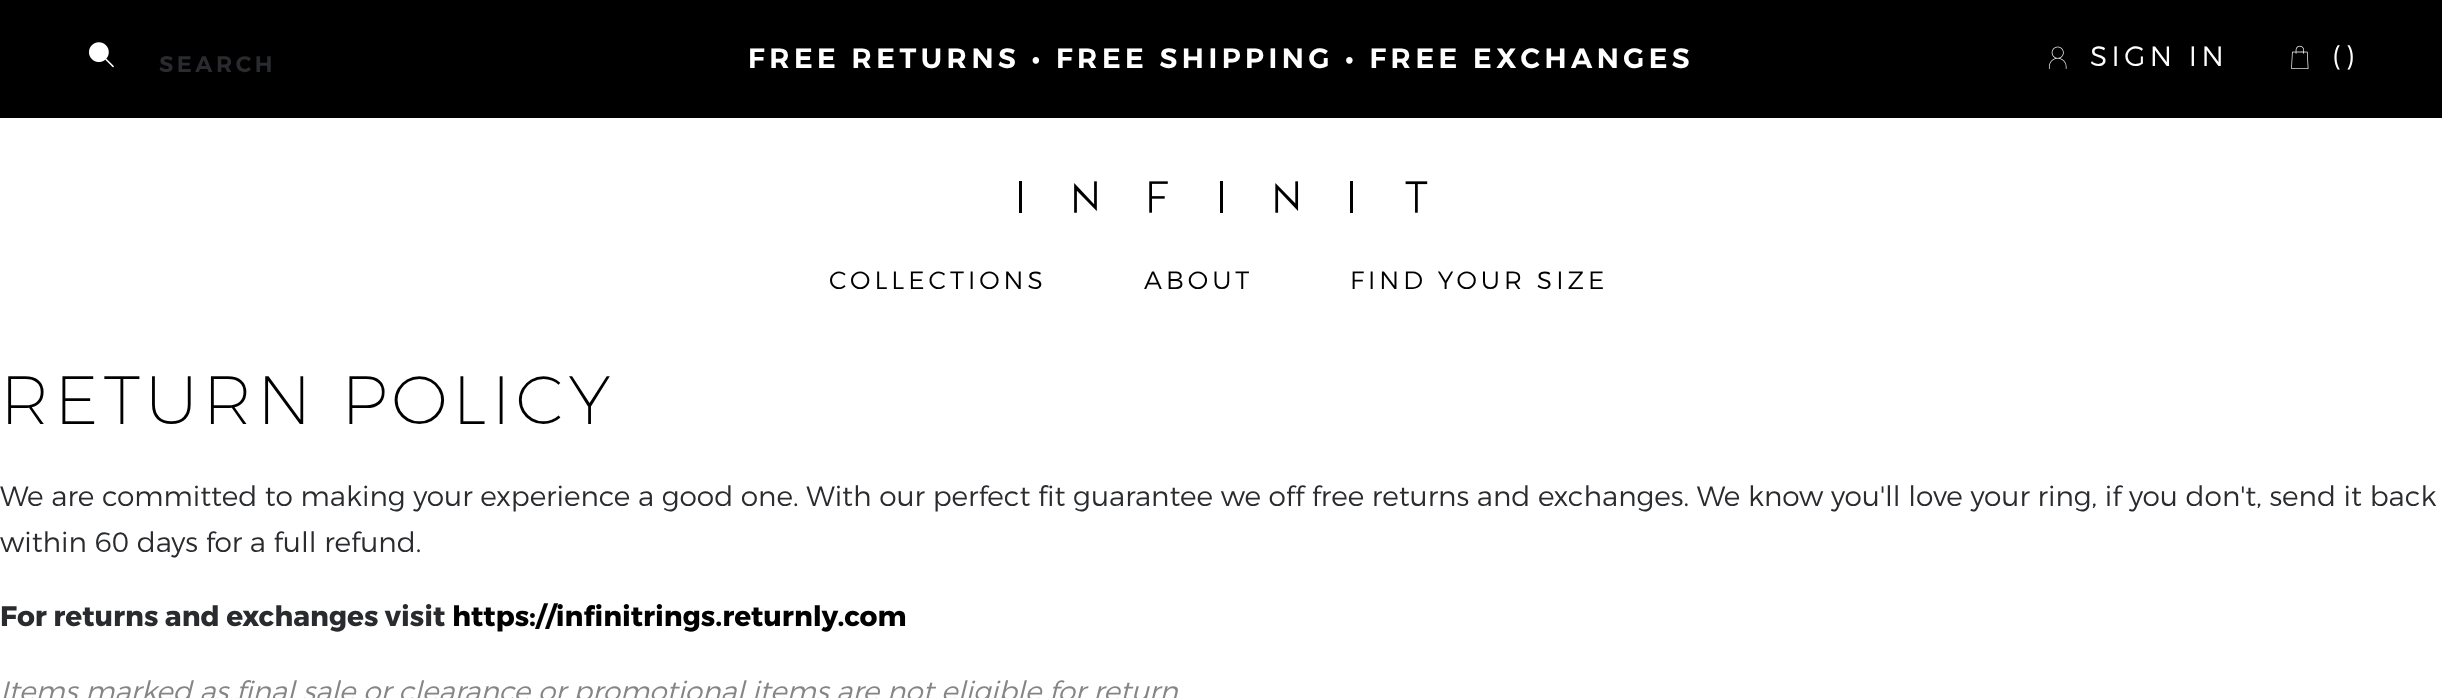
<svg xmlns="http://www.w3.org/2000/svg" width="2442" height="698">
<style>
.a{font:600 22.5px Montserrat;letter-spacing:3.5px;fill:#292b2e}
.b{font:600 28px Montserrat;letter-spacing:4.5px;fill:#fff}
.c{font:300 28px Montserrat;letter-spacing:4.5px;fill:#fff}
.d{font:300 25px Montserrat;letter-spacing:4px;fill:#000}
.e{font:200 68.25px Montserrat;letter-spacing:5px;fill:#000}
.f{font:300 28px Montserrat;fill:#292b2e}
.g{font:bold 28px Montserrat;fill:#292b2e}
.h{font:bold 28px Montserrat;fill:#000}
.i{font:italic 300 28px Montserrat;fill:#858585}
</style>
<rect width="100%" height="100%" fill="#fff"/>
<path fill="#000" d="M0 0h2442v118H0z"/>
<image href="1.png" x="89" y="42" width="25" height="26"/>
<image href="2.png" x="2048" y="46" width="19" height="23"/>
<image href="3.png" x="2291" y="45" width="18" height="24"/>
<image href="4.png" x="1019" y="181" width="409" height="32"/>
<text class="a" x="159" y="72">SEARCH</text>
<text class="b" x="748" y="68">FREE RETURNS • FREE SHIPPING • FREE EXCHANGES</text>
<text class="c" x="2090" y="66">SIGN IN</text>
<text class="c" x="2332" y="66">()</text>
<text class="d" x="829" y="289">COLLECTIONS</text>
<text class="d" x="1144" y="289">ABOUT</text>
<text class="d" x="1350" y="289">FIND YOUR SIZE</text>
<text class="e" x="0" y="424">RETURN POLICY</text>
<text class="f" x="0" y="506">We are committed to making your experience a good one. With our perfect fit guarantee we off free returns and exchanges. We know you'll love your ring, if you don't, send it back</text>
<text class="f" x="0" y="552">within 60 days for a full refund.</text>
<text class="g" x="0" y="626">For returns and exchanges visit</text>
<text class="h" x="452" y="626">https://infinitrings.returnly.com</text>
<text class="i" x="0" y="701">Items marked as final sale or clearance or promotional items are not eligible for return</text>
</svg>
